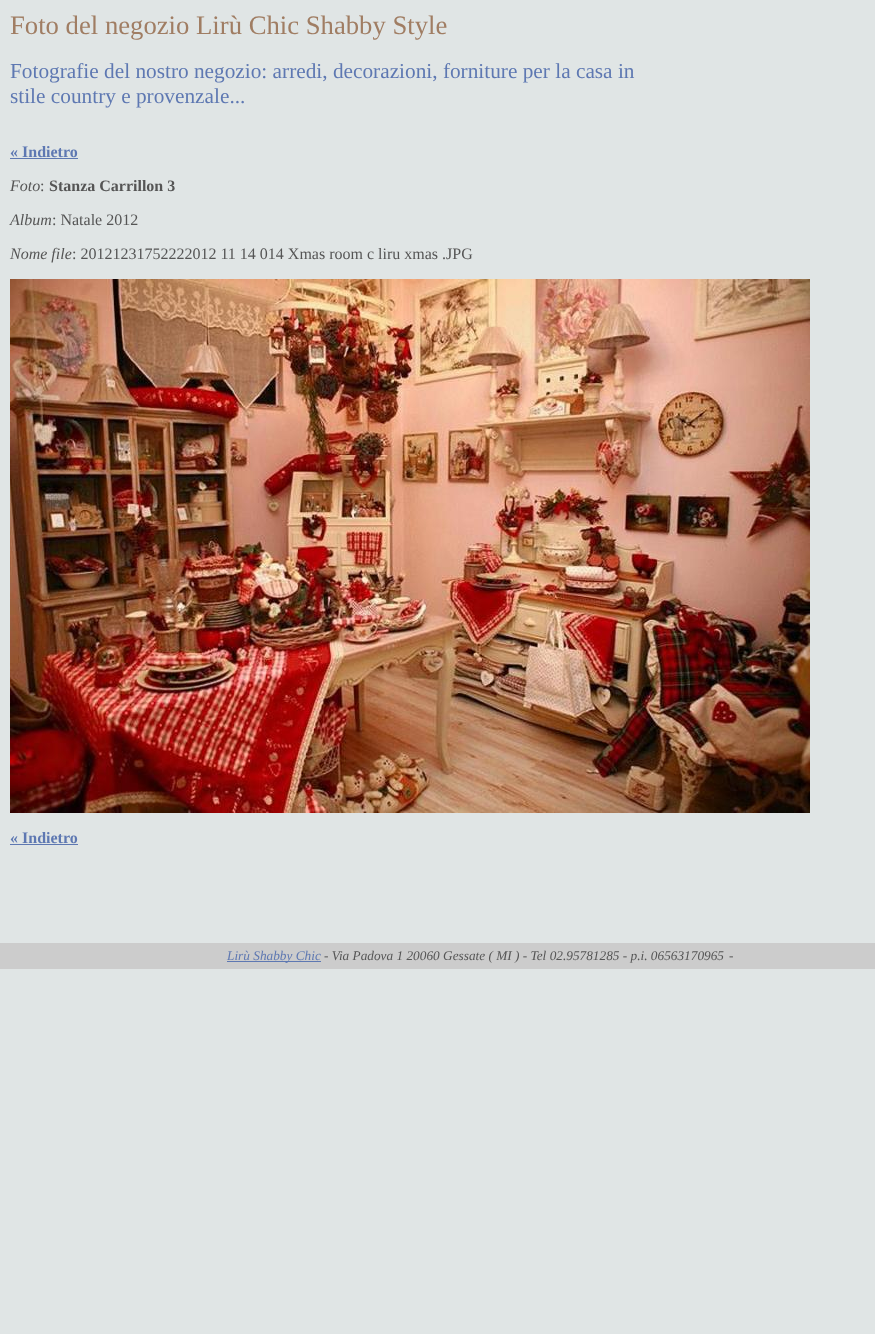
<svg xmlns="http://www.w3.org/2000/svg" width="875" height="1334">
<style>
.a{font:26.7px Liberation Serif;fill:#a07d63}
.b{font:21.3px Liberation Serif;fill:#5e78b2}
.c{font:bold 16px Liberation Serif;fill:#5e78b2}
.d{font:italic 16px Liberation Serif;fill:#555}
.e{font:16px Liberation Serif;fill:#555}
.f{font:bold 16px Liberation Serif;fill:#555}
.g{font:italic 13.3px Liberation Serif;fill:#5e78b2}
.h{font:italic 13.3px Liberation Serif;fill:#555}
.i{font:13.3px Liberation Serif;fill:#555}
</style>
<rect width="100%" height="100%" fill="#e0e5e5"/>
<path fill="#5e78b2" d="M10 158h68v1H10z"/>
<image href="1.png" x="10" y="279" width="800" height="534"/>
<path fill="#5e78b2" d="M10 844h68v1H10z"/>
<path fill="#ccc" d="M0 943h875v26H0z"/>
<path fill="#5e78b2" d="M227 961h94v1H227z"/>
<text class="a" x="10" y="34">Foto del negozio Lirù Chic Shabby Style</text>
<text class="b" x="10" y="78">Fotografie del nostro negozio: arredi, decorazioni, forniture per la casa in</text>
<text class="b" x="10" y="103">stile country e provenzale...</text>
<text class="c" x="10" y="157">« Indietro</text>
<text class="d" x="10" y="191">Foto</text>
<text class="e" x="40" y="191">:</text>
<text class="f" x="49" y="191">Stanza Carrillon 3</text>
<text class="d" x="10" y="225">Album</text>
<text class="e" x="52" y="225">: Natale 2012</text>
<text class="d" x="10" y="259">Nome file</text>
<text class="e" x="72" y="259">: 20121231752222012 11 14 014 Xmas room c liru xmas .JPG</text>
<text class="c" x="10" y="843">« Indietro</text>
<text class="g" x="227" y="960">Lirù Shabby Chic</text>
<text class="h" x="324" y="960">- Via Padova 1 20060 Gessate ( MI ) - Tel 02.95781285 - p.i. 06563170965</text>
<text class="i" x="729" y="960">-</text>
</svg>
